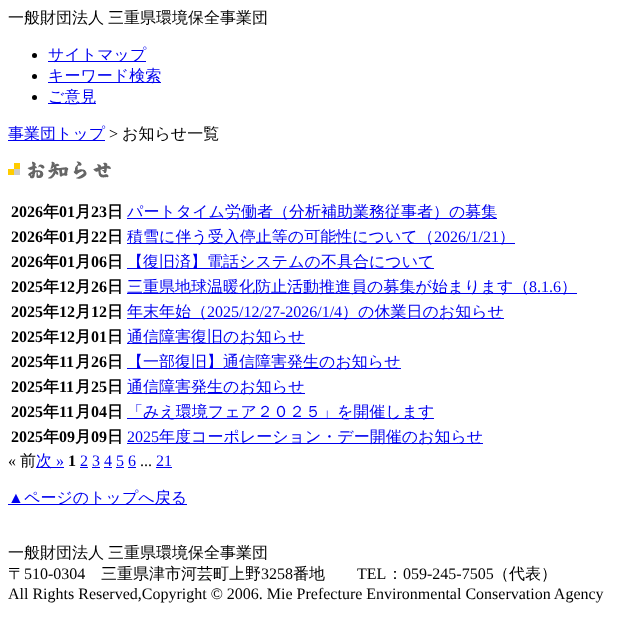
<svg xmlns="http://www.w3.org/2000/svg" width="626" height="627">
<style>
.a{font:500 16px WenQuanYi Zen Hei;fill:#000}
.b{font:500 16px WenQuanYi Zen Hei;fill:#00e}
.c{font:16px Liberation Serif;fill:#000}
.d{font:bold 16px Liberation Serif;fill:#000}
.e{font:bold 16px WenQuanYi Zen Hei;fill:#000}
.f{font:16px Liberation Serif;fill:#00e}
</style>
<rect width="100%" height="100%" fill="#fff"/>
<circle fill="#000" cx="34.5" cy="55.5" r="2.5"/>
<path fill="#00e" d="M48 61h98v1H48z"/>
<circle fill="#000" cx="34.5" cy="76.5" r="2.5"/>
<path fill="#00e" d="M48 82h113v1H48z"/>
<circle fill="#000" cx="34.5" cy="97.5" r="2.5"/>
<path fill="#00e" d="M48 103h48v1H48z"/>
<path fill="#00e" d="M8 140h97v1H8z"/>
<image href="1.png" x="8" y="161" width="103" height="18"/>
<path fill="#00e" d="M127 218h370v1H127z"/>
<path fill="#00e" d="M127 243h388v1H127z"/>
<path fill="#00e" d="M127 268h307v1H127z"/>
<path fill="#00e" d="M127 293h450v1H127z"/>
<path fill="#00e" d="M127 318h377v1H127z"/>
<path fill="#00e" d="M127 343h178v1H127z"/>
<path fill="#00e" d="M127 368h274v1H127z"/>
<path fill="#00e" d="M127 393h178v1H127z"/>
<path fill="#00e" d="M127 418h307v1H127z"/>
<path fill="#00e" d="M127 443h356v1H127z"/>
<path fill="#00e" d="M36 467h28v1H36z"/>
<path fill="#00e" d="M80 467h8v1H80z"/>
<path fill="#00e" d="M156 467h16v1H156z"/>
<path fill="#00e" d="M92 467h8v1H92z"/>
<path fill="#00e" d="M104 467h8v1H104z"/>
<path fill="#00e" d="M116 467h8v1H116z"/>
<path fill="#00e" d="M128 467h8v1H128z"/>
<path fill="#00e" d="M8 504h179v1H8z"/>
<text class="a" x="8" y="23">一般財団法人</text>
<text class="a" x="108" y="23">三重県環境保全事業団</text>
<text class="b" x="48" y="60">サイトマップ</text>
<text class="b" x="48" y="81">キーワード検索</text>
<text class="b" x="48" y="102">ご意見</text>
<text class="b" x="8" y="139">事業団トップ</text>
<text class="c" x="109" y="139">&gt;</text>
<text class="a" x="122" y="139">お知らせ一覧</text>
<text class="d" x="11" y="217">2026</text>
<text class="e" x="43" y="217">年</text>
<text class="d" x="59" y="217">01</text>
<text class="e" x="75" y="217">月</text>
<text class="d" x="91" y="217">23</text>
<text class="e" x="107" y="217">日</text>
<text class="b" x="127" y="217">パートタイム労働者（分析補助業務従事者）の募集</text>
<text class="d" x="11" y="242">2026</text>
<text class="e" x="43" y="242">年</text>
<text class="d" x="59" y="242">01</text>
<text class="e" x="75" y="242">月</text>
<text class="d" x="91" y="242">22</text>
<text class="e" x="107" y="242">日</text>
<text class="b" x="127" y="242">積雪に伴う受入停止等の可能性について（</text>
<text class="f" x="434" y="242">2026/1/21</text>
<text class="b" x="499" y="242">）</text>
<text class="d" x="11" y="267">2026</text>
<text class="e" x="43" y="267">年</text>
<text class="d" x="59" y="267">01</text>
<text class="e" x="75" y="267">月</text>
<text class="d" x="91" y="267">06</text>
<text class="e" x="107" y="267">日</text>
<text class="b" x="127" y="267">【復旧済】電話システムの不具合について</text>
<text class="d" x="11" y="292">2025</text>
<text class="e" x="43" y="292">年</text>
<text class="d" x="59" y="292">12</text>
<text class="e" x="75" y="292">月</text>
<text class="d" x="91" y="292">26</text>
<text class="e" x="107" y="292">日</text>
<text class="b" x="127" y="292">三重県地球温暖化防止活動推進員の募集が始まります（</text>
<text class="f" x="529" y="292">8.1.6</text>
<text class="b" x="561" y="292">）</text>
<text class="d" x="11" y="317">2025</text>
<text class="e" x="43" y="317">年</text>
<text class="d" x="59" y="317">12</text>
<text class="e" x="75" y="317">月</text>
<text class="d" x="91" y="317">12</text>
<text class="e" x="107" y="317">日</text>
<text class="b" x="127" y="317">年末年始（</text>
<text class="f" x="207" y="317">2025/12/27-2026/1/4</text>
<text class="b" x="342" y="317">）の休業日のお知らせ</text>
<text class="d" x="11" y="342">2025</text>
<text class="e" x="43" y="342">年</text>
<text class="d" x="59" y="342">12</text>
<text class="e" x="75" y="342">月</text>
<text class="d" x="91" y="342">01</text>
<text class="e" x="107" y="342">日</text>
<text class="b" x="127" y="342">通信障害復旧のお知らせ</text>
<text class="d" x="11" y="367">2025</text>
<text class="e" x="43" y="367">年</text>
<text class="d" x="59" y="367">11</text>
<text class="e" x="75" y="367">月</text>
<text class="d" x="91" y="367">26</text>
<text class="e" x="107" y="367">日</text>
<text class="b" x="127" y="367">【一部復旧】通信障害発生のお知らせ</text>
<text class="d" x="11" y="392">2025</text>
<text class="e" x="43" y="392">年</text>
<text class="d" x="59" y="392">11</text>
<text class="e" x="75" y="392">月</text>
<text class="d" x="91" y="392">25</text>
<text class="e" x="107" y="392">日</text>
<text class="b" x="127" y="392">通信障害発生のお知らせ</text>
<text class="d" x="11" y="417">2025</text>
<text class="e" x="43" y="417">年</text>
<text class="d" x="59" y="417">11</text>
<text class="e" x="75" y="417">月</text>
<text class="d" x="91" y="417">04</text>
<text class="e" x="107" y="417">日</text>
<text class="b" x="127" y="417">「みえ環境フェア２０２５」を開催します</text>
<text class="d" x="11" y="442">2025</text>
<text class="e" x="43" y="442">年</text>
<text class="d" x="59" y="442">09</text>
<text class="e" x="75" y="442">月</text>
<text class="d" x="91" y="442">09</text>
<text class="e" x="107" y="442">日</text>
<text class="f" x="127" y="442">2025</text>
<text class="b" x="159" y="442">年度コーポレーション・デー開催のお知らせ</text>
<text class="c" x="8" y="466">«</text>
<text class="a" x="20" y="466">前</text>
<text class="b" x="36" y="466">次</text>
<text class="f" x="56" y="466">»</text>
<text class="d" x="68" y="466">1</text>
<text class="f" x="80" y="466">2 3 4 5 6</text>
<text class="c" x="140" y="466">...</text>
<text class="f" x="156" y="466">21</text>
<text class="f" x="8" y="503">▲</text>
<text class="b" x="24" y="503">ページのトップへ戻る</text>
<text class="a" x="8" y="558">一般財団法人</text>
<text class="a" x="108" y="558">三重県環境保全事業団</text>
<text class="a" x="8" y="579">〒</text>
<text class="c" x="24" y="579">510-0304</text>
<text class="a" x="101" y="579">三重県津市河芸町上野</text>
<text class="c" x="261" y="579">3258</text>
<text class="a" x="293" y="579">番地</text>
<text class="c" x="357" y="579">TEL</text>
<text class="a" x="387" y="579">：</text>
<text class="c" x="403" y="579">059-245-7505</text>
<text class="a" x="493" y="579">（代表）</text>
<text class="c" x="8" y="599">All Rights Reserved,Copyright © 2006. Mie Prefecture Environmental Conservation Agency</text>
</svg>
